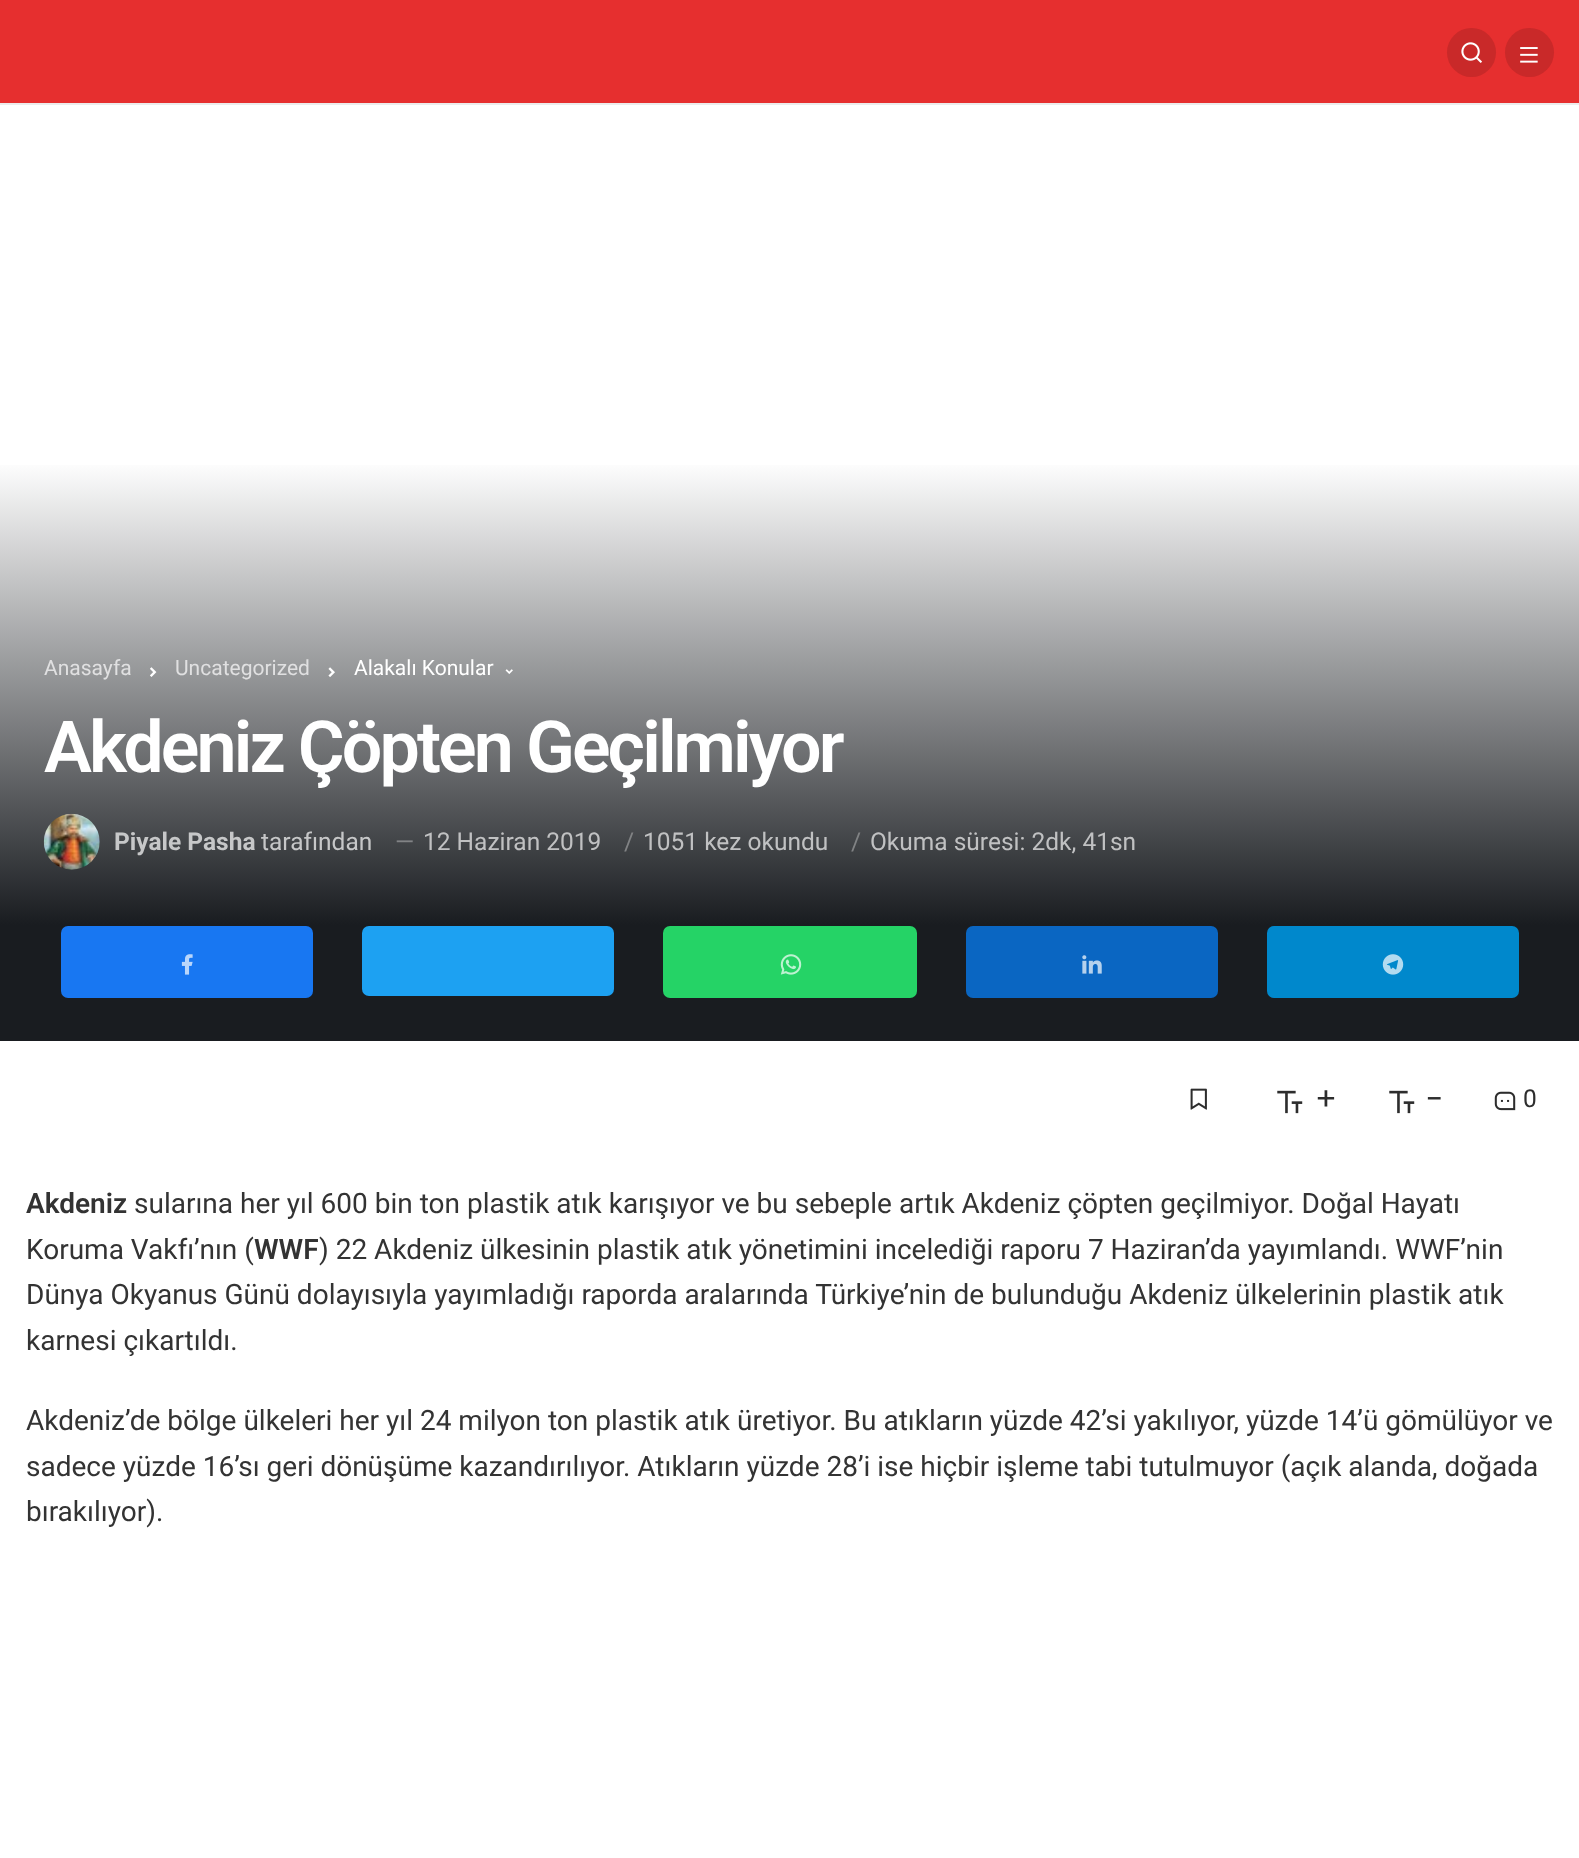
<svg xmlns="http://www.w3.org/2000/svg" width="1579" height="1858">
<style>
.a{font:21px Roboto;fill:#e0e0e1}
.b{font:21px Roboto;fill:#fff}
.c{font:600 71.75px Roboto;letter-spacing:-2.9px;fill:#fff}
.d{font:bold 24.5px Roboto;fill:#c6c7c8}
.e{font:24.5px Roboto;fill:#c6c7c8}
.f{font:24.5px Roboto;fill:#818385}
.g{font:24.5px Roboto;fill:#c0c1c2}
.h{font:32px Poppins;fill:#2d2d2d}
.i{font:24.5px Roboto;fill:#2d2d2d}
.j{font:600 28px Roboto;fill:#333}
.k{font:28px Roboto;fill:#333}
</style>
<defs>
<linearGradient id="g1" gradientUnits="userSpaceOnUse" x1="790" y1="1041" x2="790" y2="460"><stop offset="0.2" stop-color="#191c20"/><stop offset="1" stop-color="#fff"/></linearGradient>
</defs>
<rect width="100%" height="100%" fill="#fff"/>
<path fill="#e62f2f" d="M0 0h1579v103H0z"/>
<path fill="#ececec" d="M0 103h1579v2H0z"/>
<circle fill="#c92929" cx="1471.5" cy="52.5" r="24.5"/>
<image href="1.png" x="1461" y="42" width="21" height="21"/>
<circle fill="#c92929" cx="1529.5" cy="52.5" r="24.5"/>
<image href="2.png" x="1520" y="47" width="18" height="16"/>
<path fill="url(#g1)" d="M0 465h1579v576H0z"/>
<image href="3.png" x="150" y="667" width="7" height="10"/>
<image href="4.png" x="328" y="667" width="7" height="10"/>
<image href="5.png" x="505" y="669" width="8" height="5"/>
<image href="6.png" x="43" y="813" width="57" height="57"/>
<rect fill="#1877f2" x="61" y="926" width="252" height="72" rx="7"/>
<image href="7.png" x="181" y="954" width="12" height="21"/>
<rect fill="#1da1f2" x="362" y="926" width="252" height="70" rx="7"/>
<rect fill="#25d366" x="663" y="926" width="254" height="72" rx="7"/>
<image href="8.png" x="780" y="954" width="22" height="21"/>
<rect fill="#0a66c2" x="966" y="926" width="252" height="72" rx="7"/>
<image href="9.png" x="1082" y="955" width="20" height="19"/>
<rect fill="#08c" x="1267" y="926" width="252" height="72" rx="7"/>
<image href="10.png" x="1382" y="954" width="22" height="21"/>
<image href="11.png" x="1190" y="1088" width="17" height="22"/>
<image href="12.png" x="1277" y="1090" width="26" height="24"/>
<image href="12.png" x="1389" y="1090" width="26" height="24"/>
<image href="13.png" x="1494" y="1091" width="22" height="20"/>
<text class="a" x="44" y="675">Anasayfa</text>
<text class="a" x="175" y="675">Uncategorized</text>
<text class="b" x="354" y="675">Alakalı Konular</text>
<text class="c" x="44" y="772">Akdeniz Çöpten Geçilmiyor</text>
<text class="d" x="114" y="850">Piyale Pasha</text>
<text class="e" x="261" y="850">tarafından</text>
<text class="f" x="395" y="850">—</text>
<text class="g" x="423" y="850">12 Haziran 2019</text>
<text class="f" x="624" y="850">/</text>
<text class="g" x="643" y="850">1051 kez okundu</text>
<text class="f" x="851" y="850">/</text>
<text class="g" x="870" y="850">Okuma süresi: 2dk, 41sn</text>
<text class="h" x="1315" y="1110">+</text>
<text class="h" x="1426" y="1110">-</text>
<text class="i" x="1523" y="1107">0</text>
<text class="j" x="26" y="1213">Akdeniz</text>
<text class="k" x="134" y="1213">sularına her yıl 600 bin ton plastik atık karışıyor ve bu sebeple artık Akdeniz çöpten geçilmiyor. Doğal Hayatı</text>
<text class="k" x="26" y="1259">Koruma Vakfı’nın (</text>
<text class="j" x="254" y="1259">WWF</text>
<text class="k" x="319" y="1259">) 22 Akdeniz ülkesinin plastik atık yönetimini incelediği raporu 7 Haziran’da yayımlandı. WWF’nin</text>
<text class="k" x="26" y="1304">Dünya Okyanus Günü dolayısıyla yayımladığı raporda aralarında Türkiye’nin de bulunduğu Akdeniz ülkelerinin plastik atık</text>
<text class="k" x="26" y="1350">karnesi çıkartıldı.</text>
<text class="k" x="26" y="1430">Akdeniz’de bölge ülkeleri her yıl 24 milyon ton plastik atık üretiyor. Bu atıkların yüzde 42’si yakılıyor, yüzde 14’ü gömülüyor ve</text>
<text class="k" x="26" y="1476">sadece yüzde 16’sı geri dönüşüme kazandırılıyor. Atıkların yüzde 28’i ise hiçbir işleme tabi tutulmuyor (açık alanda, doğada</text>
<text class="k" x="26" y="1521">bırakılıyor).</text>
</svg>
